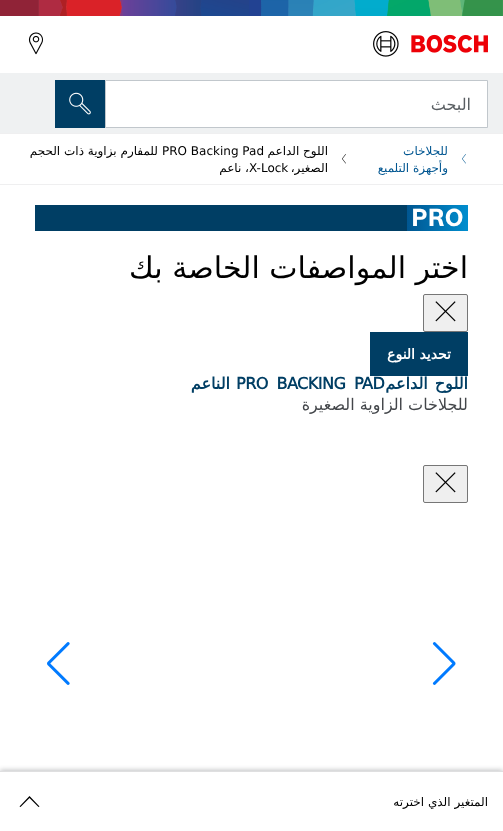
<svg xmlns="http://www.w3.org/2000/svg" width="503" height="831">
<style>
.a{font:16px DejaVu Sans;direction:rtl;fill:#595e62}
.b{font:12px DejaVu Sans;direction:rtl;fill:#005691}
.c{font:12px DejaVu Sans;direction:rtl;fill:#000}
.d{font:12px DejaVu Sans;fill:#000}
.e{font:bold 24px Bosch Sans;fill:#fff}
.f{font:30px DejaVu Sans;direction:rtl;fill:#000}
.g{font:bold 14px DejaVu Sans;direction:rtl;fill:#fff}
.h{font:bold 16px DejaVu Sans;letter-spacing:-0.5px;direction:rtl;fill:#003e64}
.i{font:bold 16px DejaVu Sans;letter-spacing:-0.5px;fill:#003e64}
.j{font:16px DejaVu Sans;direction:rtl;fill:#43464a}
</style>
<defs>
<linearGradient id="g1" gradientUnits="userSpaceOnUse" x1="407" y1="218" x2="468" y2="218"><stop offset="0" stop-color="#005691"/><stop offset="1" stop-color="#008ecf"/></linearGradient>
<clipPath id="clip1"><path d="M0 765h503v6H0z"/></clipPath>
</defs>
<rect width="100%" height="100%" fill="#fff"/>
<image href="1.png" x="0" y="0" width="503" height="16"/>
<path fill="#eff1f2" d="M0 73h503v60H0z"/>
<image href="2.png" x="373" y="31" width="115" height="26"/>
<image href="3.png" x="28" y="32" width="15" height="23"/>
<path fill="#fff" stroke="#c1c7cc" d="M105.5 80.5h382v47H105.5z"/>
<path fill="#003e64" d="M55 80h50v48H55z"/>
<image href="4.png" x="69" y="92" width="22" height="23"/>
<path fill="#efeff0" d="M0 133h503v1H0z"/>
<path fill="#efeff0" d="M0 184h503v1H0z"/>
<image href="5.png" x="462" y="154" width="4" height="10"/>
<image href="6.png" x="342" y="154" width="4" height="10"/>
<path fill="#003e64" d="M35 205h372v26H35z"/>
<path fill="url(#g1)" d="M407 205h61v26H407z"/>
<rect fill="#efefef" stroke="#767676" x="423.5" y="294.5" width="44" height="37" rx="1.5"/>
<image href="7.png" x="435" y="301" width="21" height="21"/>
<path fill="#003e64" d="M370 332h98v44H370z"/>
<rect fill="#efefef" stroke="#767676" x="423.5" y="465.5" width="44" height="37" rx="1.5"/>
<image href="7.png" x="435" y="472" width="21" height="21"/>
<image href="8.png" x="432" y="642" width="24" height="43"/>
<image href="9.png" x="47" y="642" width="23" height="43"/>
<g clip-path="url(#clip1)">
<path fill="#bfc0c2" filter="blur(2.5px)" d="M0 770h503v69H0z"/>
</g>
<path fill="#dfdfe0" d="M0 771h503v1H0z"/>
<path fill="#000" d="M20.5 807l9-9l9 9l1-.5l-10-10.5l-10 10.5z"/>
<text class="a" x="471" y="110">البحث</text>
<text class="b" x="448" y="155">للجلاخات</text>
<text class="b" x="448" y="172">وأجهزة التلميع</text>
<text class="c" x="328" y="155">اللوح الداعم</text>
<text class="d" x="162" y="155">PRO Backing Pad</text>
<text class="c" x="158" y="155">للمفارم بزاوية ذات الحجم</text>
<text class="c" x="328" y="172">الصغير،</text>
<text class="d" x="249" y="172">X-Lock</text>
<text class="c" x="249" y="172">، ناعم</text>
<text class="e" x="411" y="226">PRO</text>
<text class="f" x="468" y="278">اختر المواصفات الخاصة بك</text>
<text class="g" x="451" y="359">تحديد النوع</text>
<text class="h" x="468" y="389" word-spacing="2">اللوح الداعم</text>
<text class="i" x="236" y="389" word-spacing="4">PRO BACKING PAD</text>
<text class="h" x="230" y="389">الناعم</text>
<text class="j" x="468" y="410">للجلاخات الزاوية الصغيرة</text>
<text class="c" x="488" y="806">المتغير الذي اخترته</text>
</svg>
